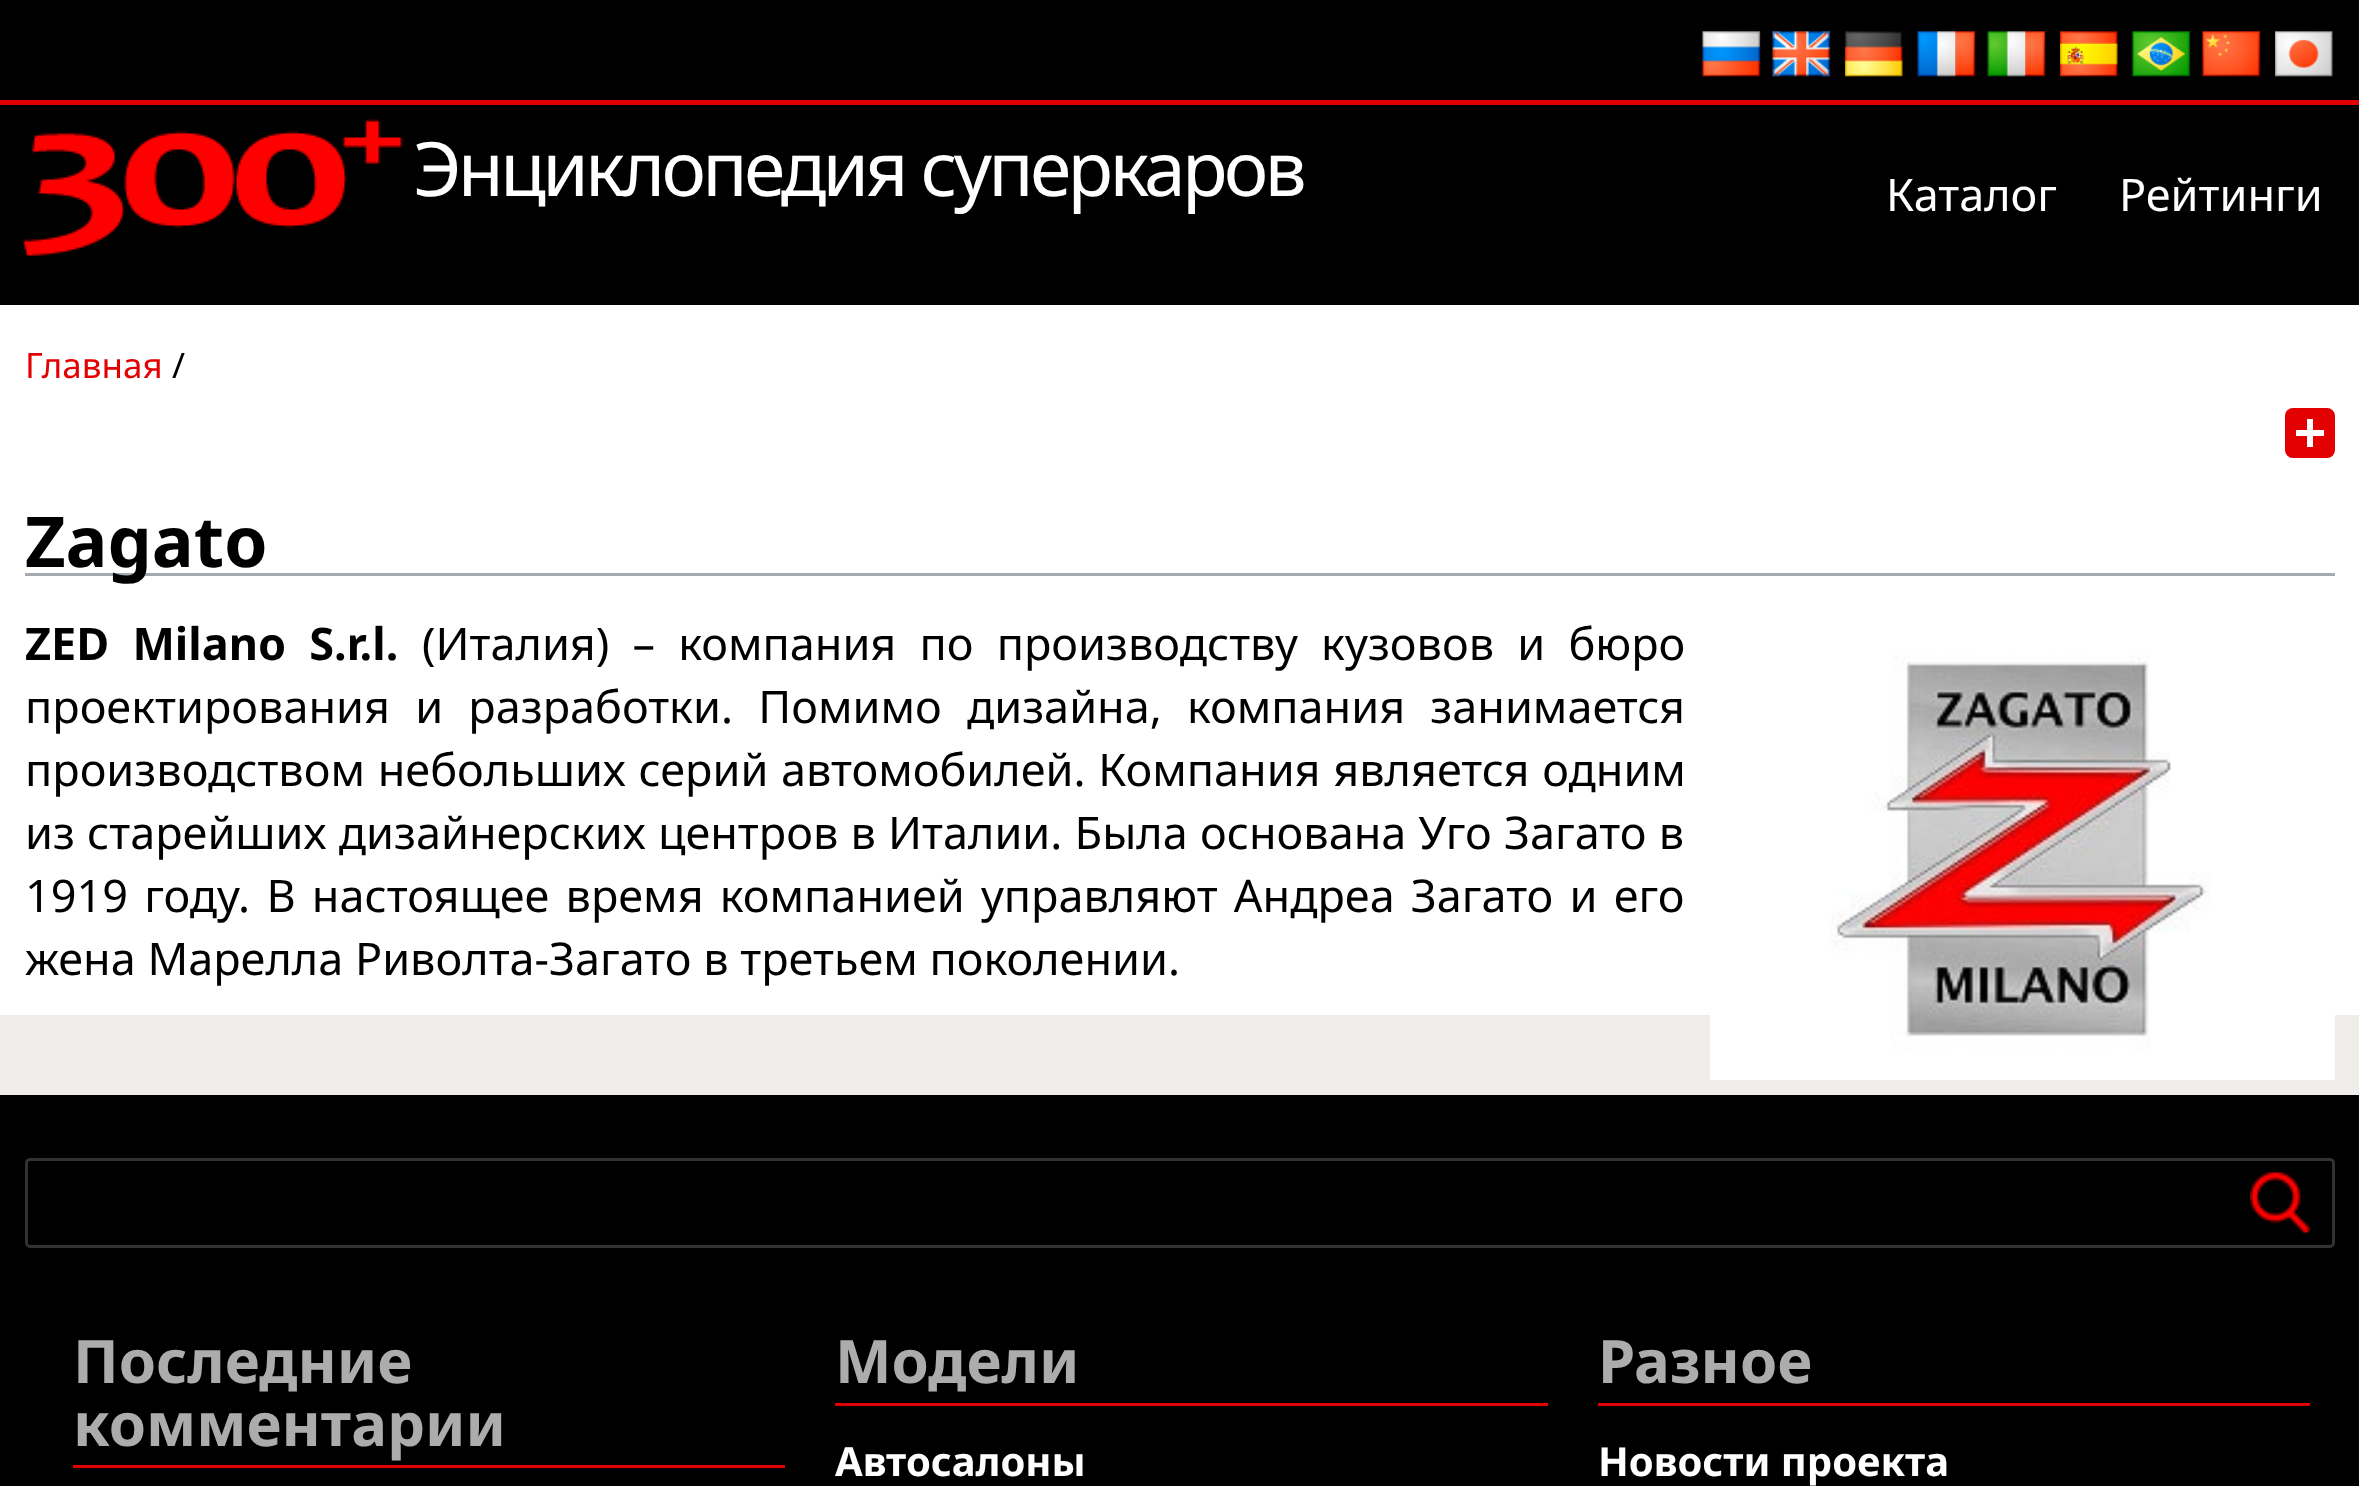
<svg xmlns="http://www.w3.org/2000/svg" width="2359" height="1486">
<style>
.a{font:75px Noto Sans;letter-spacing:-3.75px;fill:#fff}
.b{font:45px Noto Sans;fill:#fff}
.c{font:35px Noto Sans;fill:#e30000}
.d{font:35px Noto Sans;fill:#000}
.e{font:bold 70px Noto Sans;fill:#000}
.f{font:bold 45px Noto Sans;fill:#000}
.g{font:45px Noto Sans;fill:#000}
.h{font:bold 60px Noto Sans;fill:#acacac}
.i{font:bold 40px Noto Sans;fill:#fff}
</style>
<rect width="100%" height="100%" fill="#efede9"/>
<path fill="#000" d="M0 0h2359v100H0z"/>
<path fill="#e30000" d="M0 100h2359v5H0z"/>
<image href="1.png" x="1702" y="31" width="59" height="46"/>
<image href="2.png" x="1772" y="31" width="59" height="46"/>
<image href="3.png" x="1845" y="31" width="58" height="46"/>
<image href="4.png" x="1917" y="31" width="59" height="46"/>
<image href="5.png" x="1987" y="31" width="59" height="46"/>
<image href="6.png" x="2060" y="31" width="58" height="46"/>
<image href="7.png" x="2132" y="31" width="59" height="46"/>
<image href="8.png" x="2202" y="31" width="59" height="46"/>
<image href="9.png" x="2275" y="31" width="58" height="46"/>
<path fill="#000" d="M0 105h2359v200H0z"/>
<image href="10.png" x="22" y="119" width="381" height="137"/>
<path fill="#fff" d="M0 305h2359v710H0z"/>
<rect fill="#e30000" x="2285" y="408" width="50" height="50" rx="8"/>
<path fill="#fff" d="M2307 419h6v28H2307z"/>
<path fill="#fff" d="M2296 430h28v6H2296z"/>
<path fill="#a2a9b1" d="M25 573h2310v3H25z"/>
<image href="11.png" x="1710" y="655" width="625" height="425"/>
<path fill="#000" d="M0 1095h2359v391H0z"/>
<rect fill="none" stroke="#323232" stroke-width="3" x="26.5" y="1159.5" width="2307" height="87" rx="3.5"/>
<image href="12.png" x="2250" y="1172" width="60" height="61"/>
<path fill="#e30000" d="M73 1465h712v3H73z"/>
<path fill="#e30000" d="M835 1403h713v3H835z"/>
<path fill="#e30000" d="M1598 1403h712v3H1598z"/>
<text class="a" x="413" y="196">Энциклопедия суперкаров</text>
<text class="b" x="1886" y="211">Каталог</text>
<text class="b" x="2119" y="211">Рейтинги</text>
<text class="c" x="25" y="378">Главная</text>
<text class="d" x="172" y="378">/</text>
<text class="e" x="25" y="567">Zagato</text>
<text class="f" x="25" y="660" word-spacing="11.5">ZED Milano S.r.l.</text>
<text class="g" x="422" y="660" word-spacing="11.5">(Италия) – компания по производству кузовов и бюро</text>
<text class="g" x="25" y="723" word-spacing="13.5">проектирования и разработки. Помимо дизайна, компания занимается</text>
<text class="g" x="25" y="786" word-spacing="1">производством небольших серий автомобилей. Компания является одним</text>
<text class="g" x="25" y="849" word-spacing="0.5">из старейших дизайнерских центров в Италии. Была основана Уго Загато в</text>
<text class="g" x="25" y="912" word-spacing="4.5">1919 году. В настоящее время компанией управляют Андреа Загато и его</text>
<text class="g" x="25" y="975">жена Марелла Риволта-Загато в третьем поколении.</text>
<text class="h" x="73" y="1383">Последние</text>
<text class="h" x="73" y="1446">комментарии</text>
<text class="h" x="835" y="1383">Модели</text>
<text class="i" x="835" y="1476">Автосалоны</text>
<text class="h" x="1598" y="1383">Разное</text>
<text class="i" x="1598" y="1476">Новости проекта</text>
</svg>
